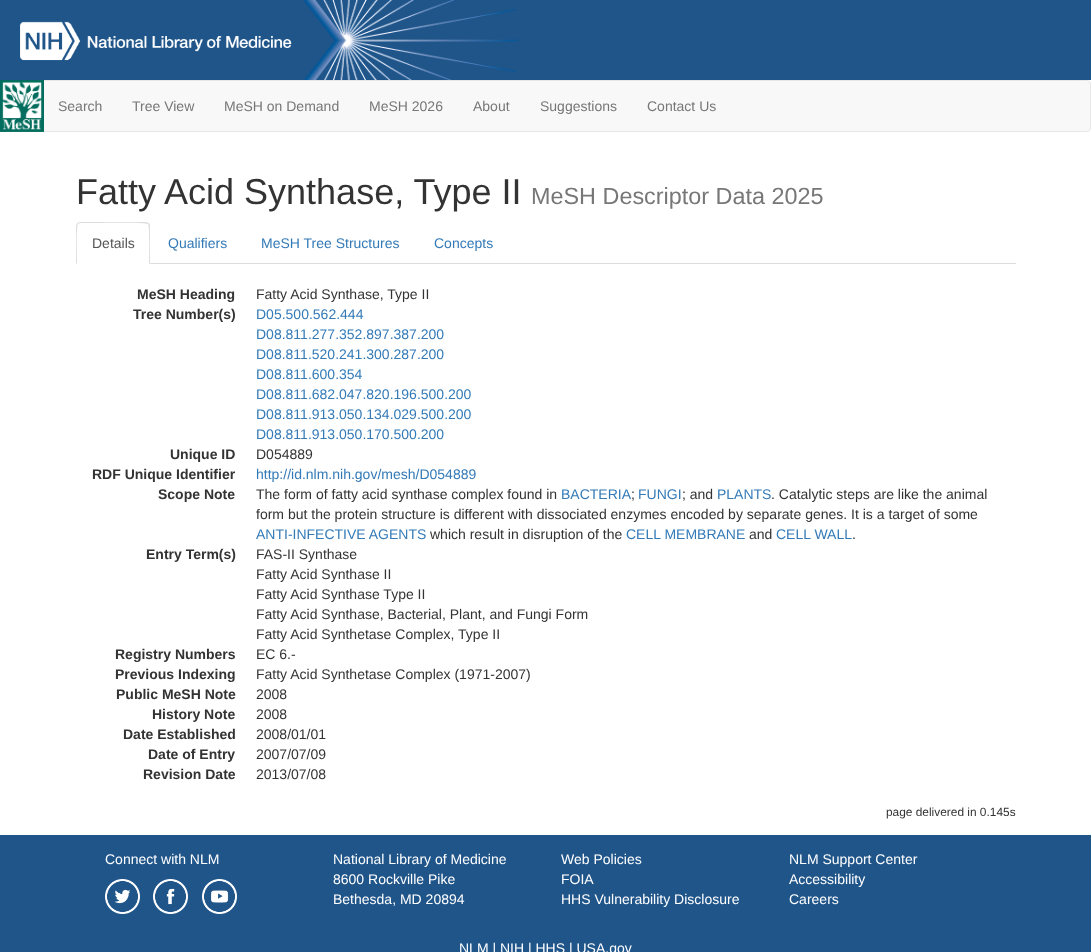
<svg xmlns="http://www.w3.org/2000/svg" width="1091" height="952">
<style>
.a{font:14px Liberation Sans;fill:#777}
.b{font:36px Liberation Sans;fill:#333}
.c{font:23.4px Liberation Sans;fill:#777}
.d{font:14px Liberation Sans;fill:#555}
.e{font:14px Liberation Sans;fill:#337ab7}
.f{font:bold 14px Liberation Sans;fill:#333}
.g{font:14px Liberation Sans;fill:#333}
.h{font:11.9px Liberation Sans;fill:#333}
.i{font:14px Liberation Sans;fill:#fff}
</style>
<rect width="100%" height="100%" fill="#fff"/>
<path fill="#20558a" d="M0 0h1091v80H0z"/>
<image href="1.png" x="303" y="0" width="216" height="80"/>
<image href="2.png" x="20" y="21" width="272" height="40"/>
<rect fill="#f8f8f8" stroke="#e7e7e7" x="0.5" y="80.5" width="1090" height="51" rx="3.5"/>
<image href="3.png" x="0" y="80" width="44" height="52"/>
<path fill="#ddd" d="M150 263h866v1H150z"/>
<path fill="#ddd" d="M80 222l-3 1l1 1l2-1h11c6 0 55-1 57 1l1-1l-3-1z"/>
<path fill="#ddd" d="M150 264v-38c0-1 0-2-1-3l-1 1c2 2 1 34 1 39z"/>
<path fill="#ddd" d="M76 264l1-1c0-5-1-37 1-39l-1-1l-1 3z"/>
<path fill="#20558a" d="M0 835h1091v117H0z"/>
<image href="4.png" x="105" y="879" width="35" height="35"/>
<image href="5.png" x="153" y="879" width="35" height="35"/>
<image href="6.png" x="202" y="879" width="35" height="35"/>
<text class="a" x="58" y="111">Search</text>
<text class="a" x="132" y="111">Tree View</text>
<text class="a" x="224" y="111">MeSH on Demand</text>
<text class="a" x="369" y="111">MeSH 2026</text>
<text class="a" x="473" y="111">About</text>
<text class="a" x="540" y="111">Suggestions</text>
<text class="a" x="647" y="111">Contact Us</text>
<text class="b" x="76" y="204">Fatty Acid Synthase, Type II</text>
<text class="c" x="531" y="204">MeSH Descriptor Data 2025</text>
<text class="d" x="92" y="248">Details</text>
<text class="e" x="168" y="248">Qualifiers</text>
<text class="e" x="261" y="248">MeSH Tree Structures</text>
<text class="e" x="434" y="248">Concepts</text>
<text class="f" x="137" y="299">MeSH Heading</text>
<text class="g" x="256" y="299">Fatty Acid Synthase, Type II</text>
<text class="f" x="133" y="319">Tree Number(s)</text>
<text class="e" x="256" y="319">D05.500.562.444</text>
<text class="e" x="256" y="339">D08.811.277.352.897.387.200</text>
<text class="e" x="256" y="359">D08.811.520.241.300.287.200</text>
<text class="e" x="256" y="379">D08.811.600.354</text>
<text class="e" x="256" y="399">D08.811.682.047.820.196.500.200</text>
<text class="e" x="256" y="419">D08.811.913.050.134.029.500.200</text>
<text class="e" x="256" y="439">D08.811.913.050.170.500.200</text>
<text class="f" x="170" y="459">Unique ID</text>
<text class="g" x="256" y="459">D054889</text>
<text class="f" x="92" y="479">RDF Unique Identifier</text>
<text class="e" x="256" y="479">http://id.nlm.nih.gov/mesh/D054889</text>
<text class="f" x="158" y="499">Scope Note</text>
<text class="g" x="256" y="499">The form of fatty acid synthase complex found in</text>
<text class="e" x="561" y="499">BACTERIA</text>
<text class="g" x="631" y="499">;</text>
<text class="e" x="638" y="499">FUNGI</text>
<text class="g" x="682" y="499">; and</text>
<text class="e" x="717" y="499">PLANTS</text>
<text class="g" x="771" y="499">. Catalytic steps are like the animal</text>
<text class="g" x="256" y="519">form but the protein structure is different with dissociated enzymes encoded by separate genes. It is a target of some</text>
<text class="e" x="256" y="539">ANTI-INFECTIVE AGENTS</text>
<text class="g" x="430" y="539">which result in disruption of the</text>
<text class="e" x="626" y="539">CELL MEMBRANE</text>
<text class="g" x="749" y="539">and</text>
<text class="e" x="776" y="539">CELL WALL</text>
<text class="g" x="852" y="539">.</text>
<text class="f" x="146" y="559">Entry Term(s)</text>
<text class="g" x="256" y="559">FAS-II Synthase</text>
<text class="g" x="256" y="579">Fatty Acid Synthase II</text>
<text class="g" x="256" y="599">Fatty Acid Synthase Type II</text>
<text class="g" x="256" y="619">Fatty Acid Synthase, Bacterial, Plant, and Fungi Form</text>
<text class="g" x="256" y="639">Fatty Acid Synthetase Complex, Type II</text>
<text class="f" x="115" y="659">Registry Numbers</text>
<text class="g" x="256" y="659">EC 6.-</text>
<text class="f" x="115" y="679">Previous Indexing</text>
<text class="g" x="256" y="679">Fatty Acid Synthetase Complex (1971-2007)</text>
<text class="f" x="116" y="699">Public MeSH Note</text>
<text class="g" x="256" y="699">2008</text>
<text class="f" x="152" y="719">History Note</text>
<text class="g" x="256" y="719">2008</text>
<text class="f" x="123" y="739">Date Established</text>
<text class="g" x="256" y="739">2008/01/01</text>
<text class="f" x="148" y="759">Date of Entry</text>
<text class="g" x="256" y="759">2007/07/09</text>
<text class="f" x="143" y="779">Revision Date</text>
<text class="g" x="256" y="779">2013/07/08</text>
<text class="h" x="886" y="816">page delivered in 0.145s</text>
<text class="i" x="105" y="864">Connect with NLM</text>
<text class="i" x="333" y="864">National Library of Medicine</text>
<text class="i" x="333" y="884">8600 Rockville Pike</text>
<text class="i" x="333" y="904">Bethesda, MD 20894</text>
<text class="i" x="561" y="864">Web Policies</text>
<text class="i" x="561" y="884">FOIA</text>
<text class="i" x="561" y="904">HHS Vulnerability Disclosure</text>
<text class="i" x="789" y="864">NLM Support Center</text>
<text class="i" x="789" y="884">Accessibility</text>
<text class="i" x="789" y="904">Careers</text>
<text class="i" x="459" y="953">NLM | NIH | HHS | USA.gov</text>
</svg>
